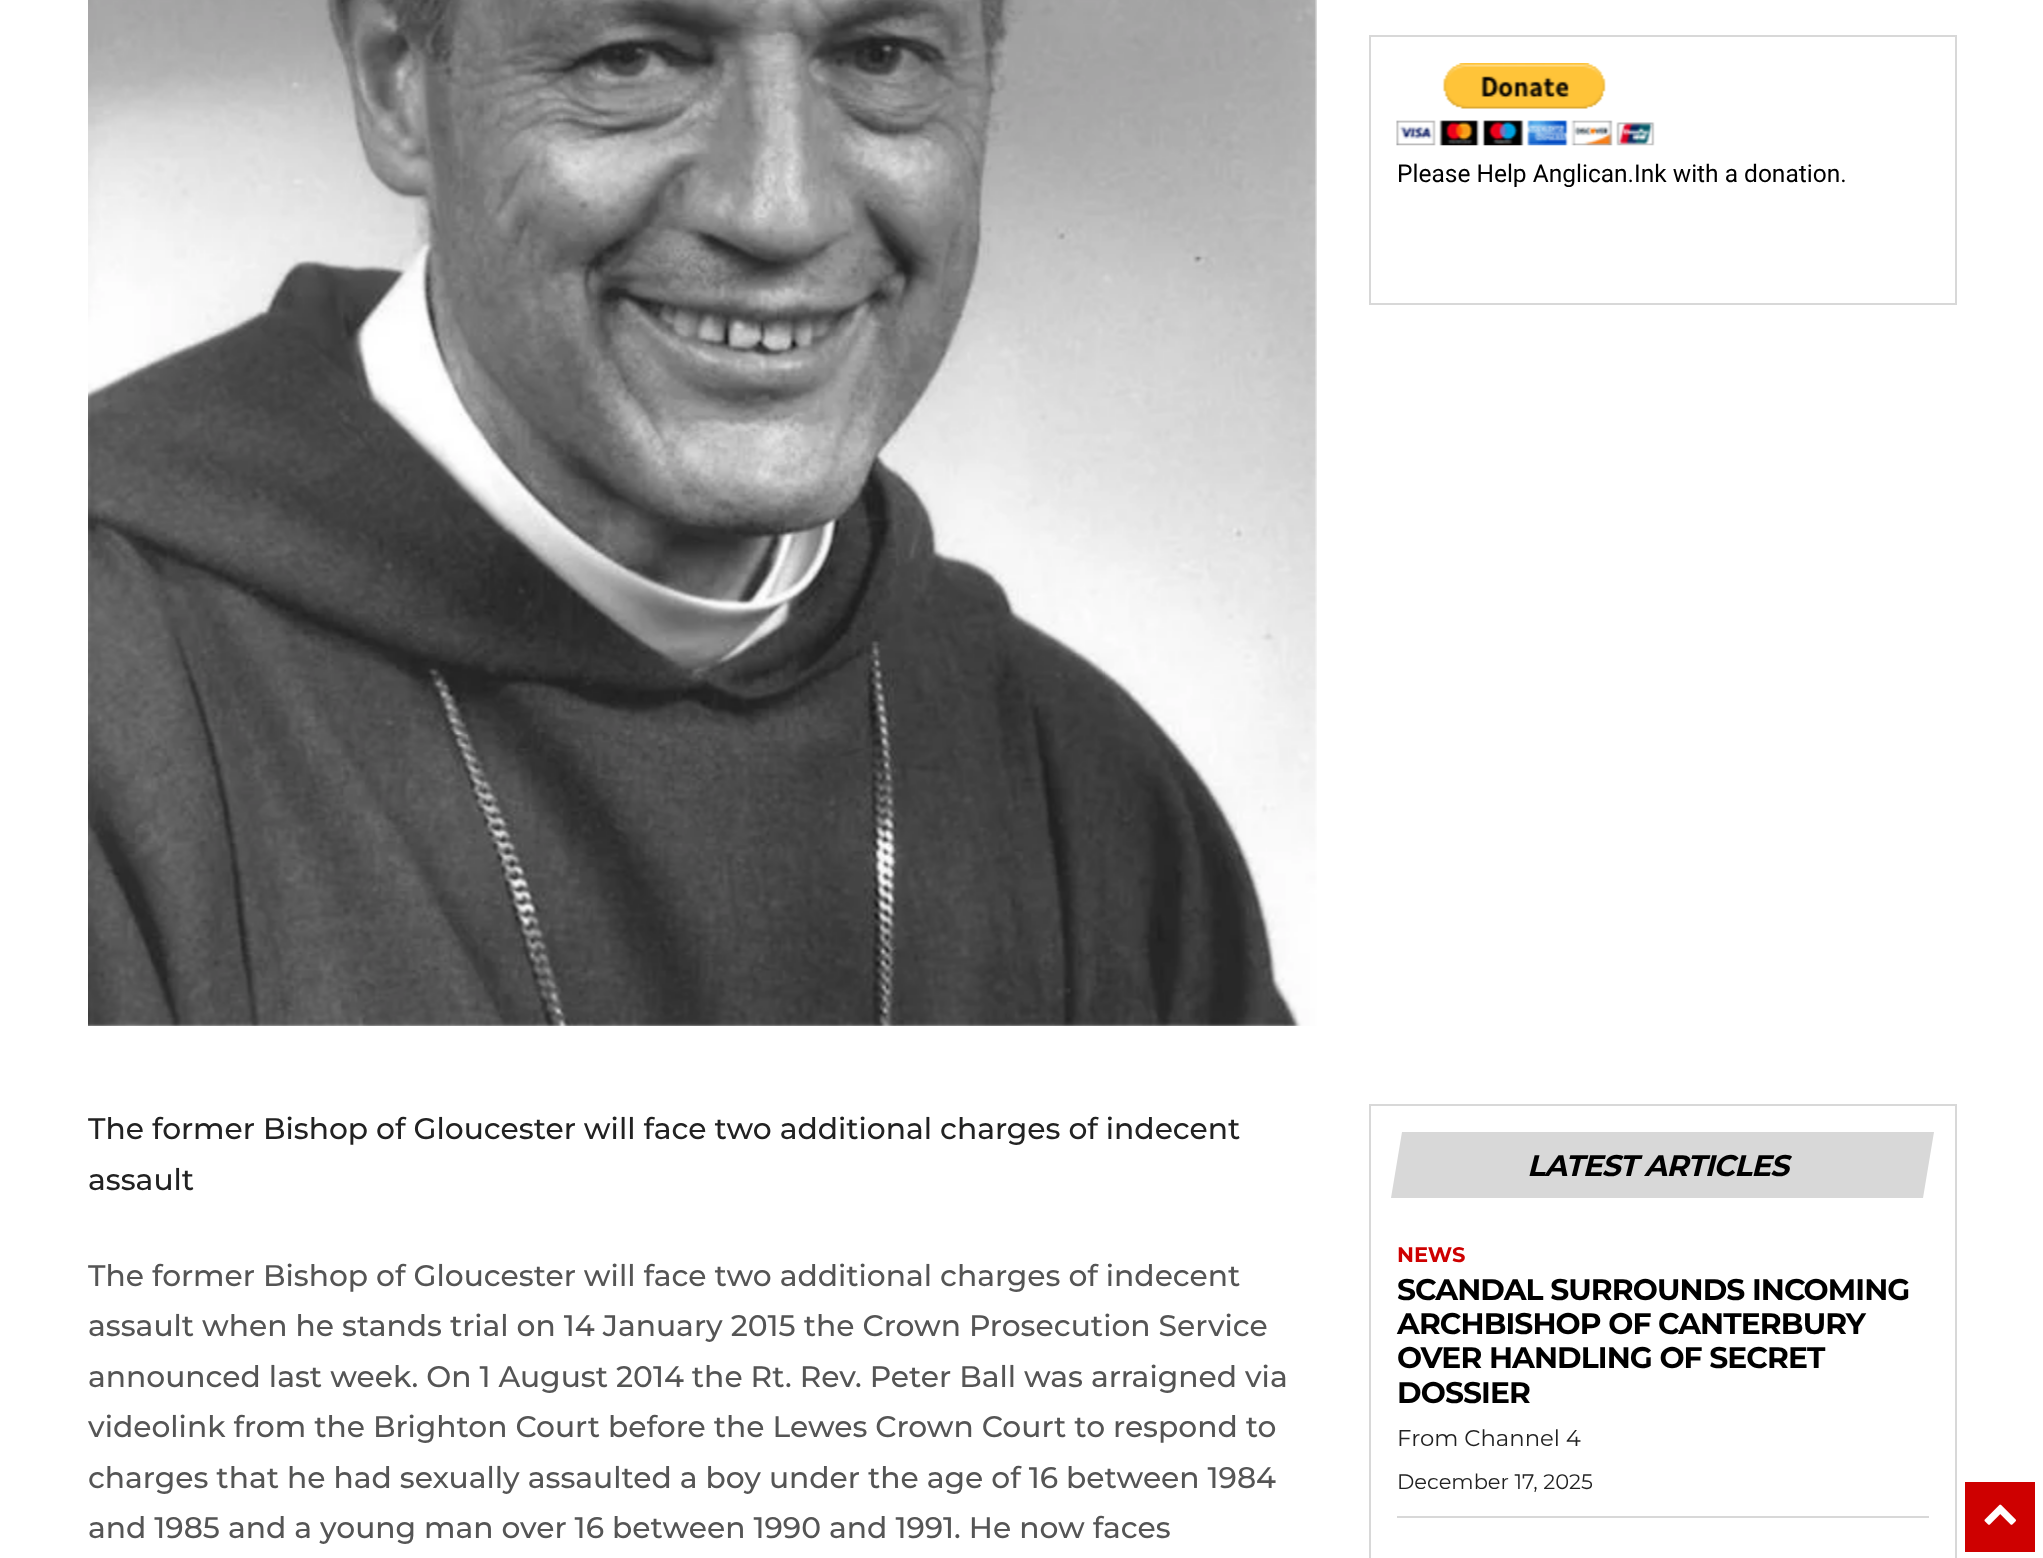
<svg xmlns="http://www.w3.org/2000/svg" width="2043" height="1558">
<style>
.a{font:24.5px Roboto;fill:#000}
.b{font:500 29.75px Montserrat;fill:#222}
.c{font:500 29.75px Montserrat;fill:#555}
.d{font:italic bold 29.75px Montserrat;letter-spacing:-0.9px;fill:#000}
.e{font:bold 21px Montserrat;fill:#ce0000}
.f{font:bold 29.75px Montserrat;letter-spacing:-0.9px;fill:#000}
.g{font:22.75px Montserrat;fill:#222}
.h{font:21px Montserrat;fill:#222}
</style>
<rect width="100%" height="100%" fill="#fff"/>
<image href="1.png" x="88" y="0" width="1229" height="1026"/>
<path fill="none" stroke="#d8d8d8" stroke-width="2" d="M1370 36h586v268H1370z"/>
<image href="2.png" x="1396" y="63" width="259" height="83"/>
<path fill="none" stroke="#d8d8d8" stroke-width="2" d="M1370 1105h586v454H1370z"/>
<path fill="#d8d8d8" d="M1402 1132h532l-11 66h-532z"/>
<path fill="#d8d8d8" d="M1397 1516h532v2H1397z"/>
<path fill="#ce0000" d="M1965 1482h70v70H1965z"/>
<image href="3.png" x="1984" y="1504" width="32" height="21"/>
<text class="a" x="1397" y="182">Please Help Anglican.Ink with a donation.</text>
<text class="b" x="88" y="1139">The former Bishop of Gloucester will face two additional charges of indecent</text>
<text class="b" x="88" y="1190">assault</text>
<text class="c" x="88" y="1286">The former Bishop of Gloucester will face two additional charges of indecent</text>
<text class="c" x="88" y="1336">assault when he stands trial on 14 January 2015 the Crown Prosecution Service</text>
<text class="c" x="88" y="1387">announced last week. On 1 August 2014 the Rt. Rev. Peter Ball was arraigned via</text>
<text class="c" x="88" y="1437">videolink from the Brighton Court before the Lewes Crown Court to respond to</text>
<text class="c" x="88" y="1488">charges that he had sexually assaulted a boy under the age of 16 between 1984</text>
<text class="c" x="88" y="1538">and 1985 and a young man over 16 between 1990 and 1991. He now faces</text>
<text class="d" x="1527" y="1176">LATEST ARTICLES</text>
<text class="e" x="1397" y="1262">NEWS</text>
<text class="f" x="1397" y="1300">SCANDAL SURROUNDS INCOMING</text>
<text class="f" x="1397" y="1334">ARCHBISHOP OF CANTERBURY</text>
<text class="f" x="1397" y="1368">OVER HANDLING OF SECRET</text>
<text class="f" x="1397" y="1403">DOSSIER</text>
<text class="g" x="1397" y="1446">From Channel 4</text>
<text class="h" x="1397" y="1489">December 17, 2025</text>
</svg>
